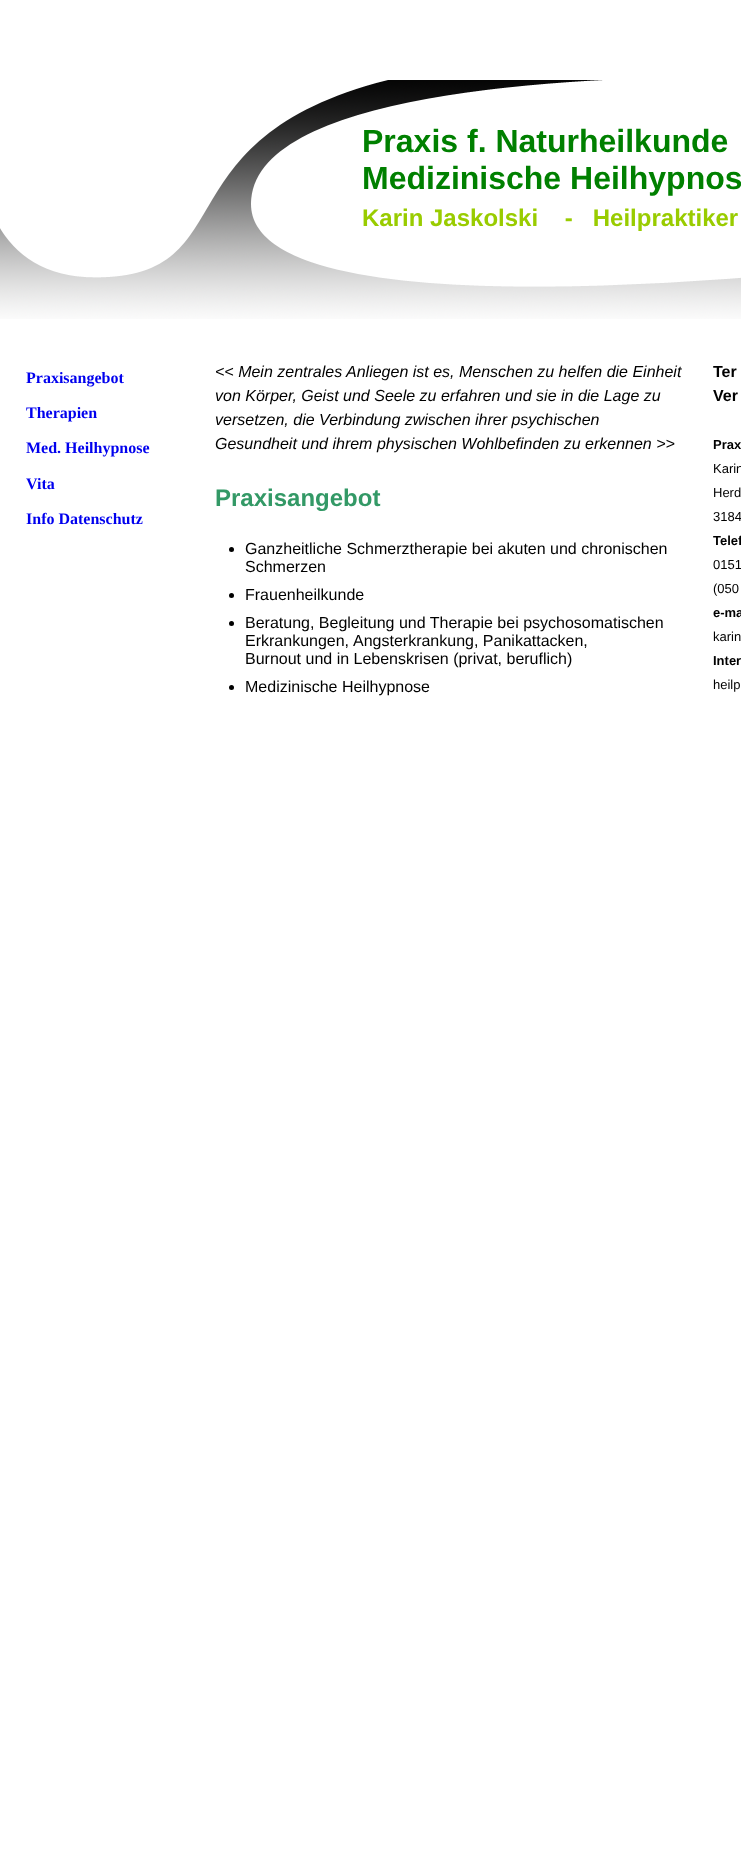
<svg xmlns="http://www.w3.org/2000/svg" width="741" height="1858">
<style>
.a{font:bold 32px Liberation Sans;fill:#008000}
.b{font:bold 24px Liberation Sans;fill:#9c0}
.c{font:bold 16px Liberation Serif;fill:#00e}
.d{font:italic 16px Liberation Sans;fill:#000}
.e{font:bold 24px Liberation Sans;fill:#396}
.f{font:16px Liberation Sans;fill:#000}
.g{font:bold 16px Liberation Sans;fill:#000}
.h{font:bold 13px Liberation Sans;fill:#000}
.i{font:13px Liberation Sans;fill:#000}
</style>
<rect width="100%" height="100%" fill="#fff"/>
<image href="1.png" x="0" y="80" width="741" height="239"/>
<circle fill="#000" cx="231.5" cy="549.5" r="2.5"/>
<circle fill="#000" cx="231.5" cy="595.5" r="2.5"/>
<circle fill="#000" cx="231.5" cy="623.5" r="2.5"/>
<circle fill="#000" cx="231.5" cy="687.5" r="2.5"/>
<text class="a" x="362" y="152">Praxis f. Naturheilkunde</text>
<text class="a" x="362" y="189">Medizinische Heilhypnos</text>
<text class="b" xml:space="preserve" x="362" y="226">Karin Jaskolski    -   Heilpraktiker</text>
<text class="c" x="26" y="383">Praxisangebot</text>
<text class="c" x="26" y="418">Therapien</text>
<text class="c" x="26" y="453">Med. Heilhypnose</text>
<text class="c" x="26" y="489">Vita</text>
<text class="c" x="26" y="524">Info Datenschutz</text>
<text class="d" x="215" y="377">&lt;&lt; Mein zentrales Anliegen ist es, Menschen zu helfen die Einheit</text>
<text class="d" x="215" y="401">von Körper, Geist und Seele zu erfahren und sie in die Lage zu</text>
<text class="d" x="215" y="425">versetzen, die Verbindung zwischen ihrer psychischen</text>
<text class="d" x="215" y="449">Gesundheit und ihrem physischen Wohlbefinden zu erkennen &gt;&gt;</text>
<text class="e" x="215" y="506">Praxisangebot</text>
<text class="f" x="245" y="554">Ganzheitliche Schmerztherapie bei akuten und chronischen</text>
<text class="f" x="245" y="572">Schmerzen</text>
<text class="f" x="245" y="600">Frauenheilkunde</text>
<text class="f" x="245" y="628">Beratung, Begleitung und Therapie bei psychosomatischen</text>
<text class="f" x="245" y="646">Erkrankungen,</text>
<text class="f" x="353" y="646">Angsterkrankung, Panikattacken,</text>
<text class="f" x="245" y="664">Burnout und in Lebenskrisen (privat, beruflich)</text>
<text class="f" x="245" y="692">Medizinische Heilhypnose</text>
<text class="g" x="713" y="377">Ter</text>
<text class="g" x="713" y="401">Ver</text>
<text class="h" x="713" y="449">Prax</text>
<text class="i" x="713" y="473">Karin</text>
<text class="i" x="713" y="497">Herd</text>
<text class="i" x="713" y="521">3184</text>
<text class="h" x="713" y="545">Telef</text>
<text class="i" x="713" y="569">0151</text>
<text class="i" x="713" y="593">(050</text>
<text class="h" x="713" y="617">e-ma</text>
<text class="i" x="713" y="641">karin</text>
<text class="h" x="713" y="665">Inter</text>
<text class="i" x="713" y="689">heilp</text>
</svg>
